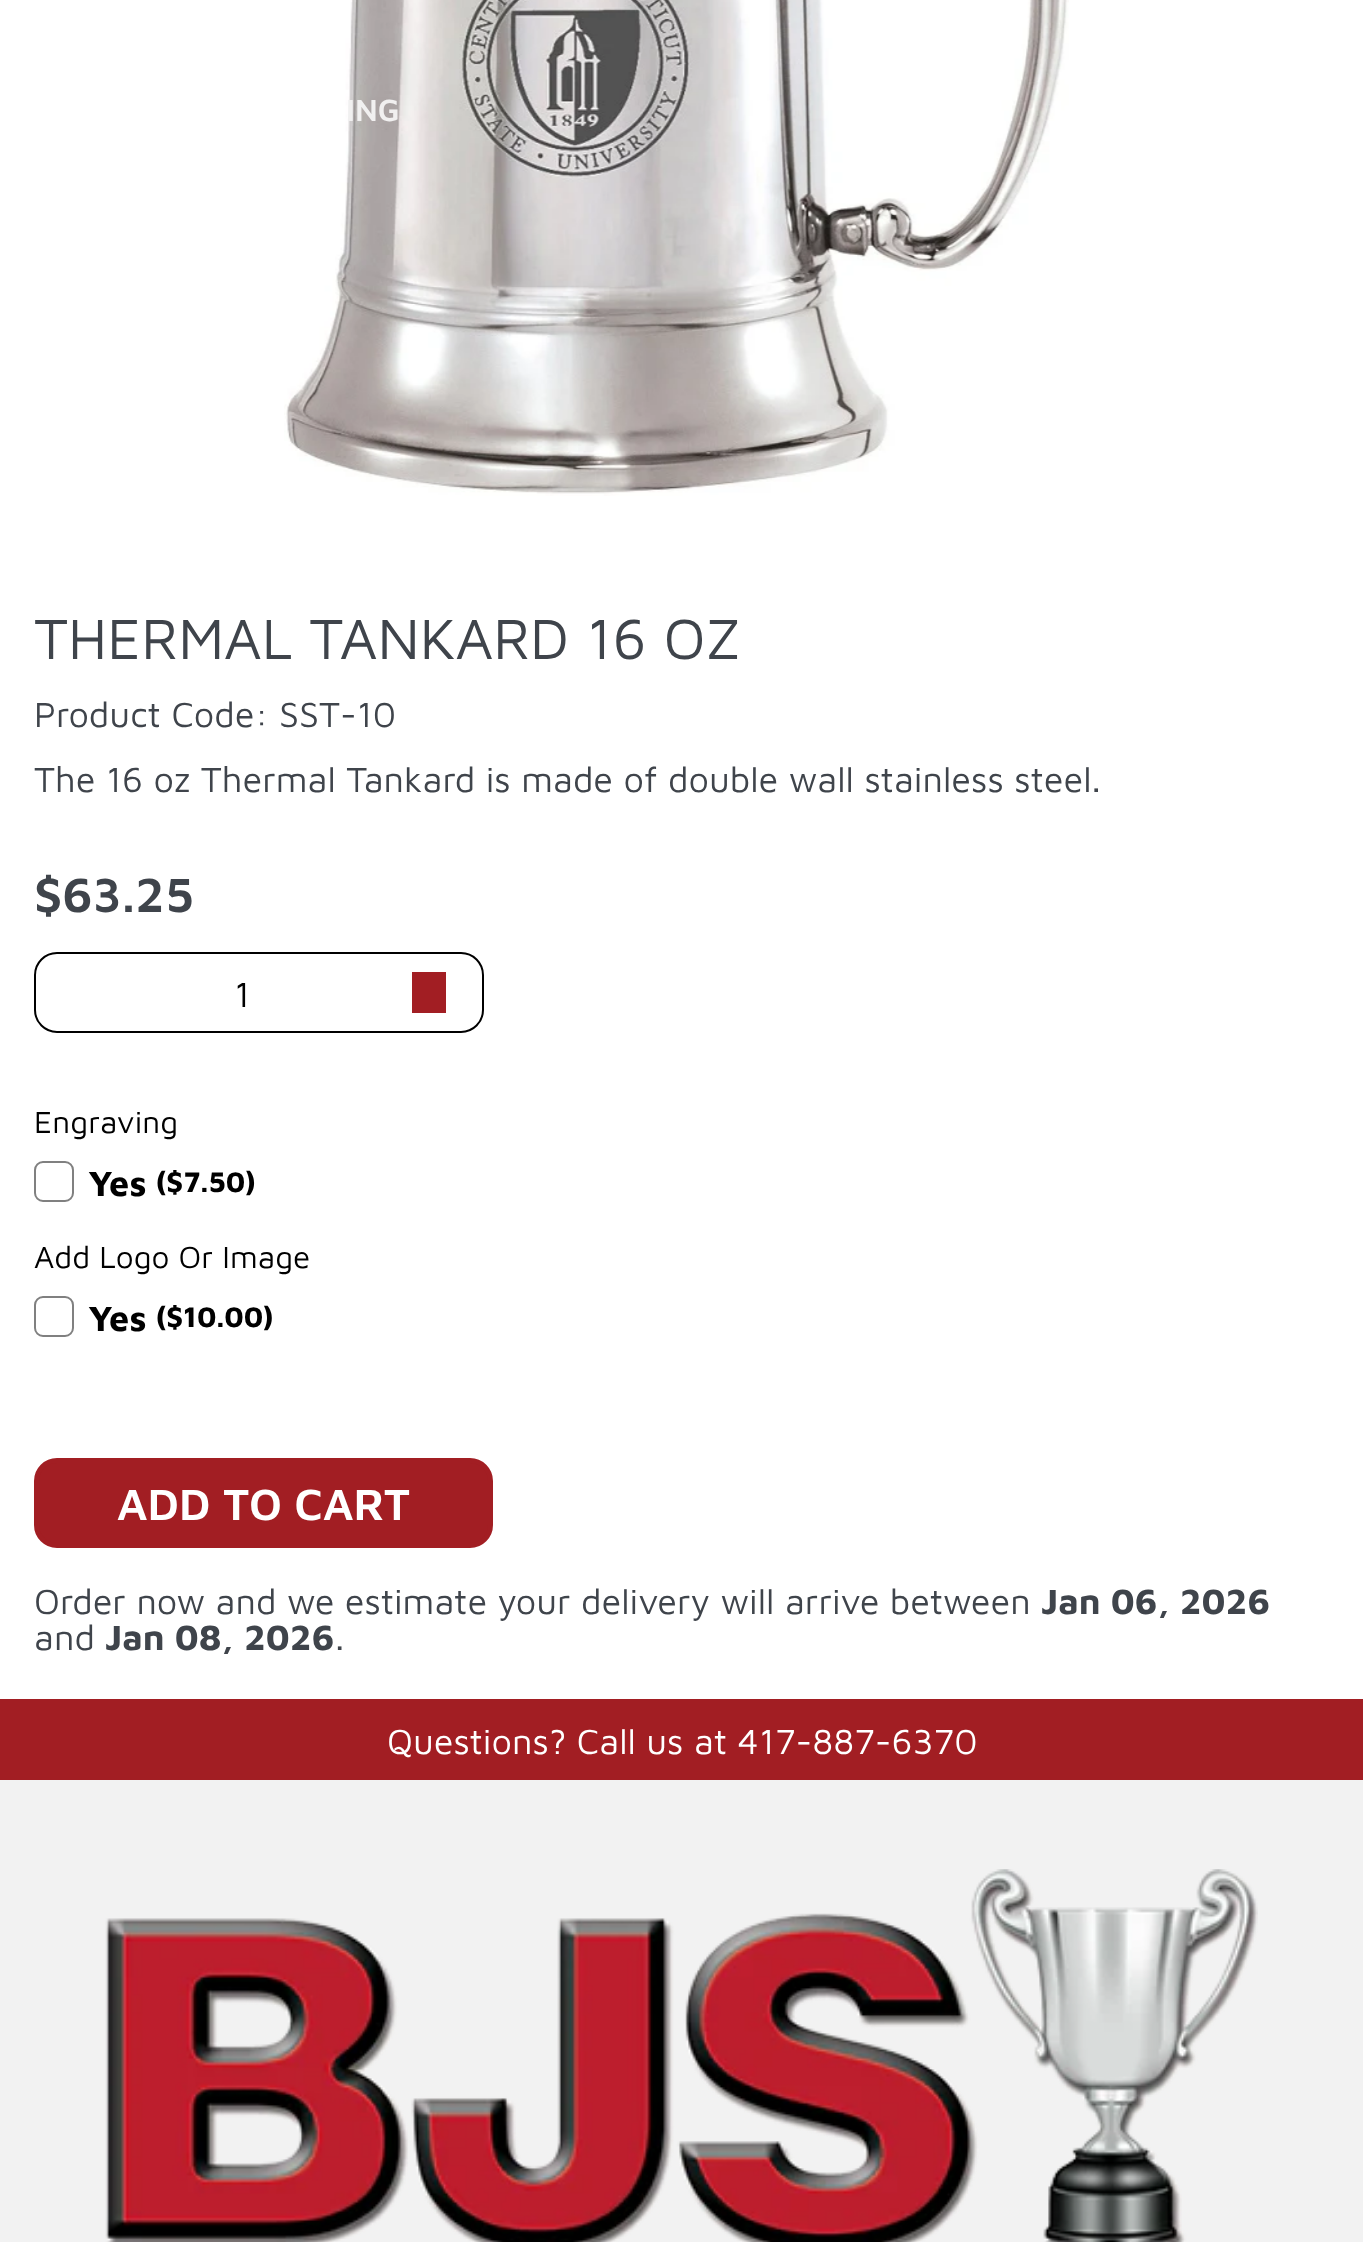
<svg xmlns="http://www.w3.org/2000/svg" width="1363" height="2242">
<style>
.a{font:600 31.5px Maven Pro;fill:#f1f0f0}
.b{font:58.5px Maven Pro;fill:#3f444b}
.c{font:36px Maven Pro;fill:#3f444b}
.d{font:600 49.5px Maven Pro;fill:#3f444b}
.e{font:36px Maven Pro;fill:#000}
.f{font:31.5px Maven Pro;fill:#000}
.g{font:bold 36px Maven Pro;fill:#000}
.h{font:bold 29.25px Maven Pro;fill:#000}
.i{font:600 45px Maven Pro;fill:#fff}
.j{font:bold 36px Maven Pro;fill:#3f444b}
.k{font:36px Maven Pro;fill:#fff}
</style>
<rect width="100%" height="100%" fill="#fff"/>
<image href="1.png" x="284" y="0" width="785" height="496"/>
<rect fill="none" stroke="#000" stroke-width="2" x="35" y="953" width="448" height="79" rx="22"/>
<path fill="#a21e23" d="M412 972h34v41H412z"/>
<rect fill="none" stroke="#808080" stroke-width="2" x="35" y="1162" width="38" height="39" rx="8"/>
<rect fill="none" stroke="#808080" stroke-width="2" x="35" y="1297" width="38" height="39" rx="8"/>
<rect fill="#a21e23" stroke="#a21e23" stroke-width="5" x="36.5" y="1460.5" width="454" height="85" rx="20.5"/>
<path fill="#a21e23" d="M0 1699h1363v81H0z"/>
<path fill="#f2f2f2" d="M0 1780h1363v462H0z"/>
<image href="2.png" x="105" y="1869" width="1153" height="373"/>
<text class="a" x="346" y="121">ING</text>
<text class="b" x="34" y="659">THERMAL TANKARD 16 OZ</text>
<text class="c" x="34" y="727">Product Code: SST-10</text>
<text class="c" x="34" y="792">The 16 oz Thermal Tankard is made of double wall stainless steel.</text>
<text class="d" x="34" y="912">$63.25</text>
<text class="e" x="234" y="1007">1</text>
<text class="f" x="34" y="1133">Engraving</text>
<text class="g" x="88" y="1196">Yes</text>
<text class="h" x="156" y="1192">($7.50)</text>
<text class="f" x="34" y="1268">Add Logo Or Image</text>
<text class="g" x="88" y="1331">Yes</text>
<text class="h" x="156" y="1327">($10.00)</text>
<text class="i" x="117" y="1520">ADD TO CART</text>
<text class="c" x="34" y="1614">Order now and we estimate your delivery will arrive between</text>
<text class="j" x="1041" y="1614">Jan 06, 2026</text>
<text class="c" x="34" y="1650">and</text>
<text class="j" x="105" y="1650">Jan 08, 2026</text>
<text class="c" x="335" y="1650">.</text>
<text class="k" x="387" y="1754">Questions? Call us at 417-887-6370</text>
</svg>
